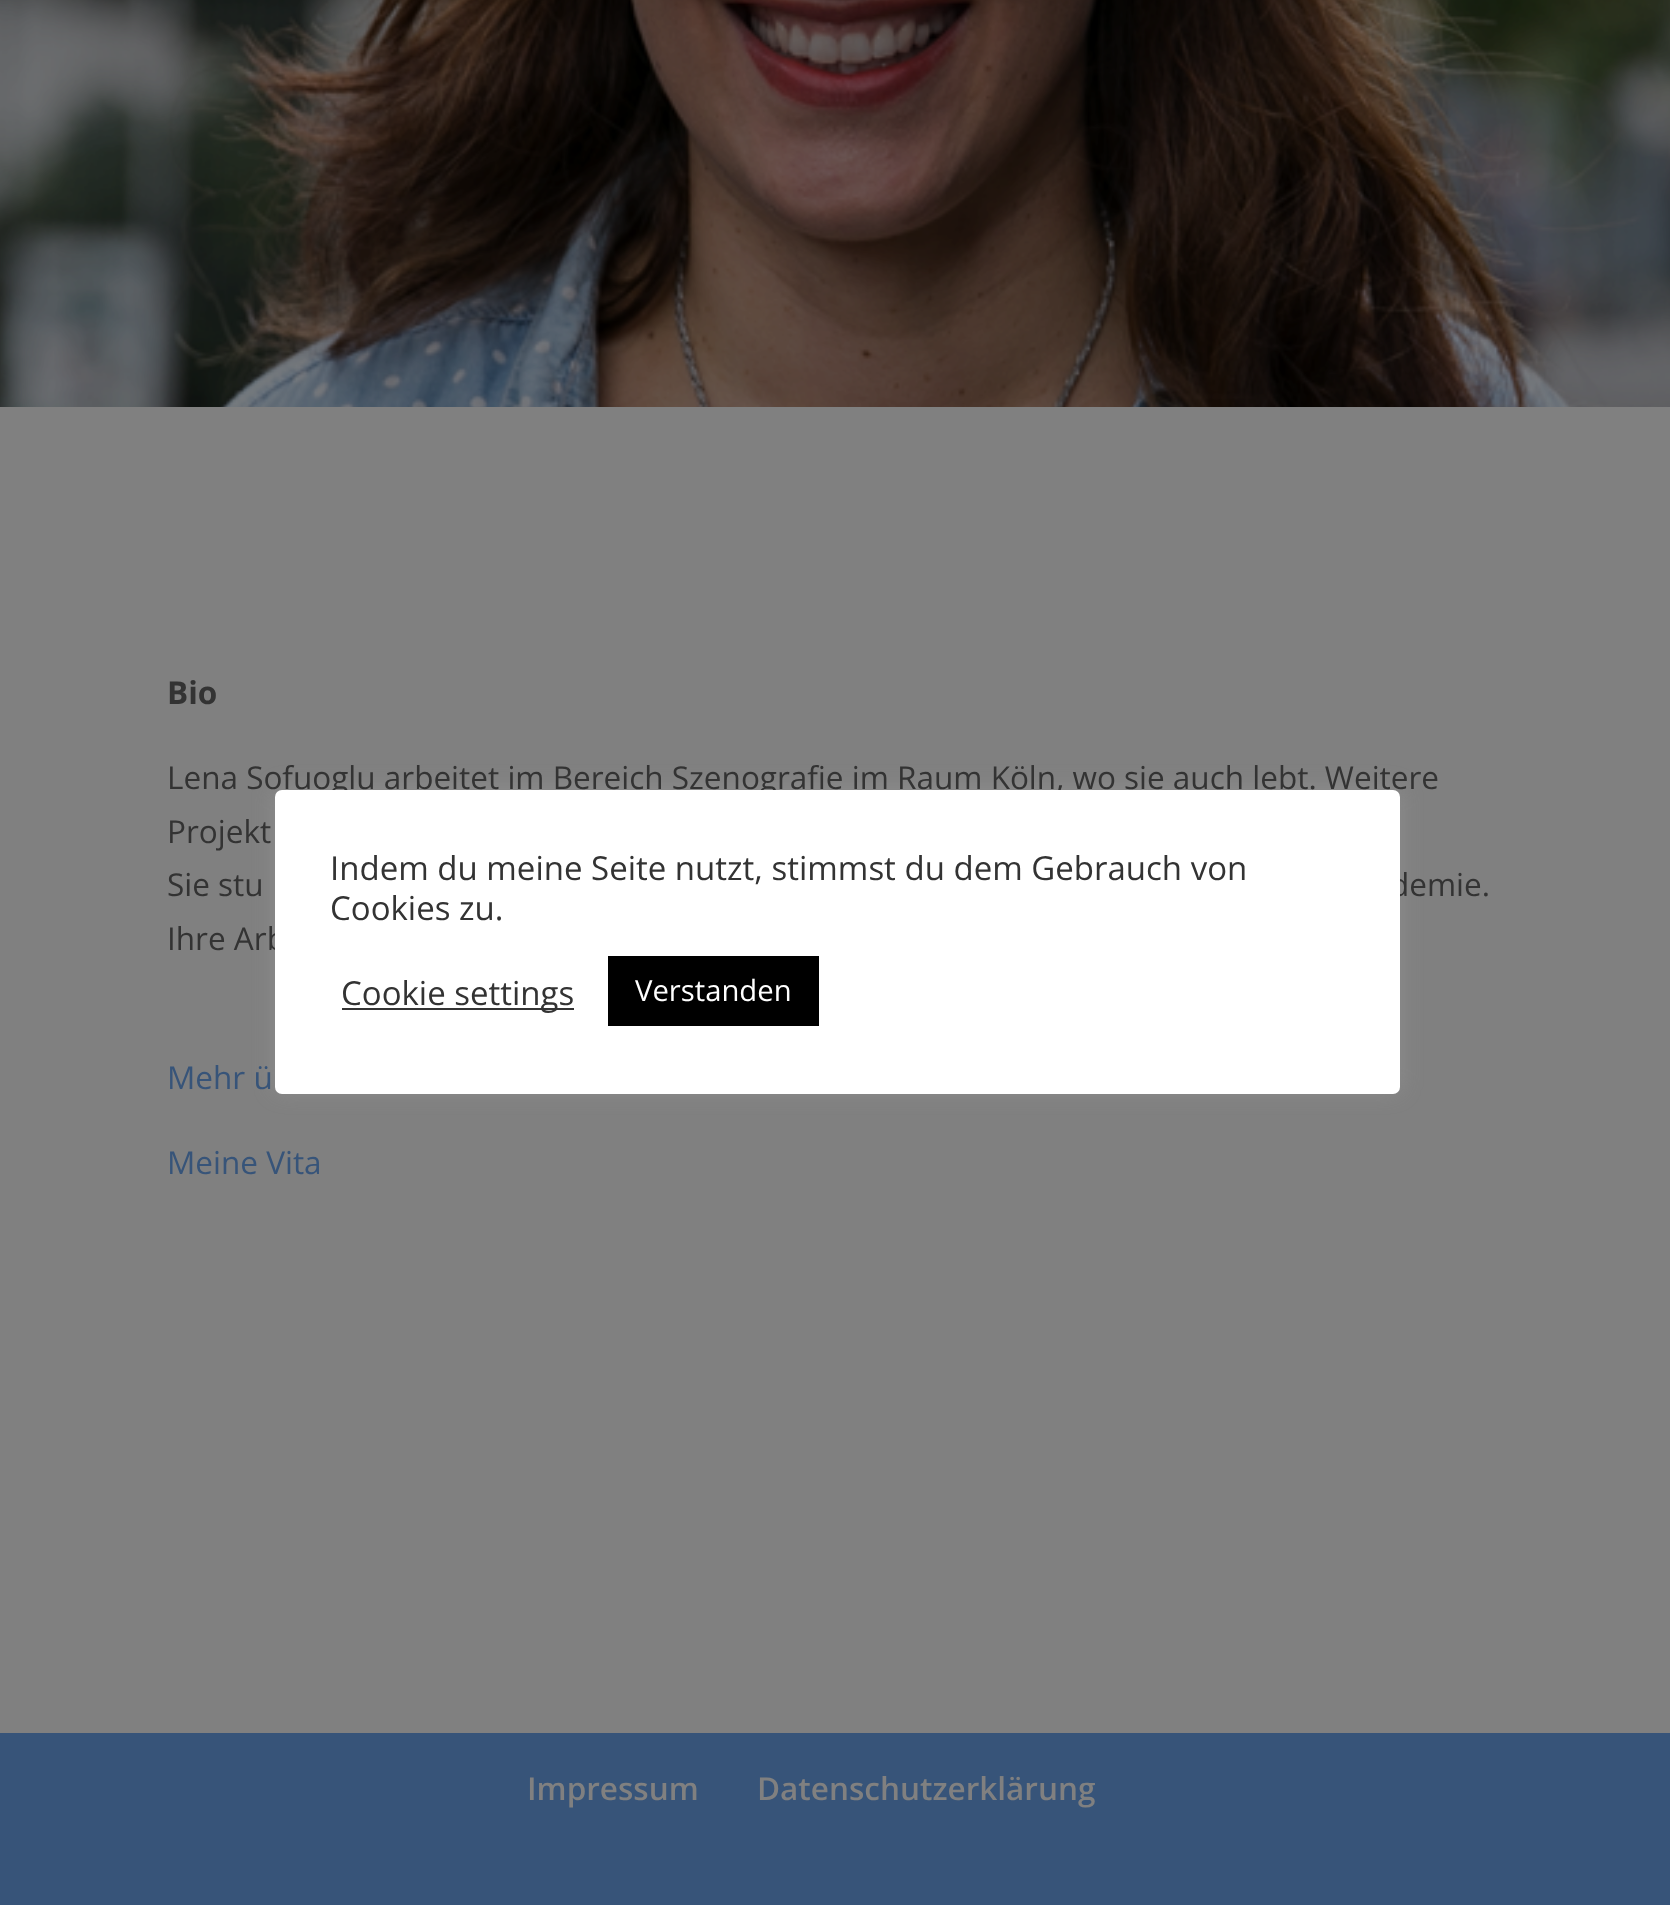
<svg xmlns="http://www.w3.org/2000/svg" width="1670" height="1905">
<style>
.a{font:bold 31.5px Open Sans;fill:#333}
.b{font:31.5px Open Sans;fill:#333}
.c{font:31.5px Open Sans;fill:#375479}
.d{font:600 31.5px Open Sans;fill:#808080}
.e{font:33px Open Sans;fill:#333}
.f{font:29.25px Open Sans;fill:#fff}
</style>
<rect width="100%" height="100%" fill="#375479"/>
<image href="1.png" x="0" y="0" width="1670" height="407"/>
<path fill="#808080" d="M0 407h1670v1326H0z"/>
<rect fill="#acabab4d" filter="blur(11px)" x="275" y="788" width="1125" height="303" rx="7"/>
<text class="a" x="167" y="704">Bio</text>
<text class="b" x="167" y="789">Lena Sofuoglu arbeitet im Bereich Szenografie im Raum Köln, wo sie auch lebt. Weitere</text>
<text class="b" x="167" y="843">Projekt</text>
<text class="b" x="167" y="896">Sie stu</text>
<text class="b" x="1390" y="896">demie.</text>
<text class="b" x="167" y="950">Ihre Arb</text>
<text class="c" x="167" y="1089">Mehr ü</text>
<text class="c" x="167" y="1174">Meine Vita</text>
<text class="d" x="527" y="1800">Impressum</text>
<text class="d" x="757" y="1800">Datenschutzerklärung</text>
<rect fill="#fff" x="275" y="790" width="1125" height="304" rx="7"/>
<text class="e" x="330" y="880">Indem du meine Seite nutzt, stimmst du dem Gebrauch von</text>
<text class="e" x="330" y="920">Cookies zu.</text>
<path fill="#333" d="M342 1008h232v2H342z"/>
<text class="e" x="341" y="1005">Cookie settings</text>
<path fill="#000" d="M608 956h211v70H608z"/>
<text class="f" x="635" y="1001">Verstanden</text>
</svg>
